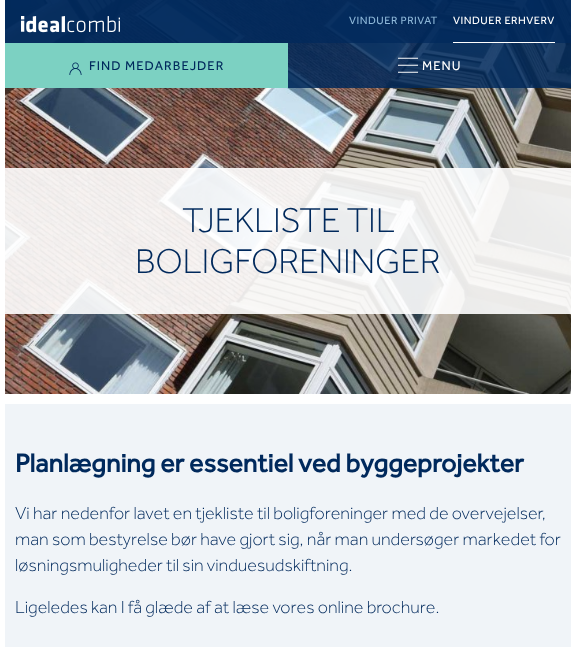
<svg xmlns="http://www.w3.org/2000/svg" width="576" height="647">
<style>
.a{font:11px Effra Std;letter-spacing:0.5px;fill:#8db7d8}
.b{font:11px Effra Std;letter-spacing:0.5px;fill:#fff}
.c{font:13px Effra Std;letter-spacing:1px;fill:#00295c}
.d{font:13px Effra Std;letter-spacing:1px;fill:#fff}
.e{font:300 35.5px Effra Std;letter-spacing:-0.25px;fill:#00295c}
.f{font:bold 26.7px Effra Std;fill:#00295c}
.g{font:300 18px Effra Std;fill:#00295c}
</style>
<rect width="100%" height="100%" fill="#fff"/>
<image href="1.png" x="5" y="0" width="566" height="394"/>
<path fill="#00295cf5" d="M5 0h566v43H5z"/>
<image href="2.png" x="21" y="16" width="99" height="17"/>
<path fill="#fff" d="M453 42h102v1H453z"/>
<path fill="#00295cd9" d="M288 43h283v45H288z"/>
<path fill="#7cd1c2" d="M5 43h283v45H5z"/>
<image href="3.png" x="69" y="62" width="13" height="13"/>
<image href="4.png" x="398" y="57" width="20" height="16"/>
<path fill="#ffffffe6" d="M5 168h566v146H5z"/>
<path fill="#f0f4f8" d="M5 404h566v243H5z"/>
<text class="a" x="349" y="24">VINDUER PRIVAT</text>
<text class="b" x="453" y="24">VINDUER ERHVERV</text>
<text class="c" x="89" y="70">FIND MEDARBEJDER</text>
<text class="d" x="422" y="70">MENU</text>
<text class="e" x="182" y="232">TJEKLISTE TIL</text>
<text class="e" x="135" y="273">BOLIGFORENINGER</text>
<text class="f" x="15" y="472">Planlægning er essentiel ved byggeprojekter</text>
<text class="g" x="15" y="519">Vi har nedenfor lavet en tjekliste til boligforeninger med de overvejelser,</text>
<text class="g" x="15" y="545">man som bestyrelse bør have gjort sig, når man undersøger markedet for</text>
<text class="g" x="15" y="571">løsningsmuligheder til sin vinduesudskiftning.</text>
<text class="g" x="15" y="613">Ligeledes kan I få glæde af at læse vores online brochure.</text>
</svg>
